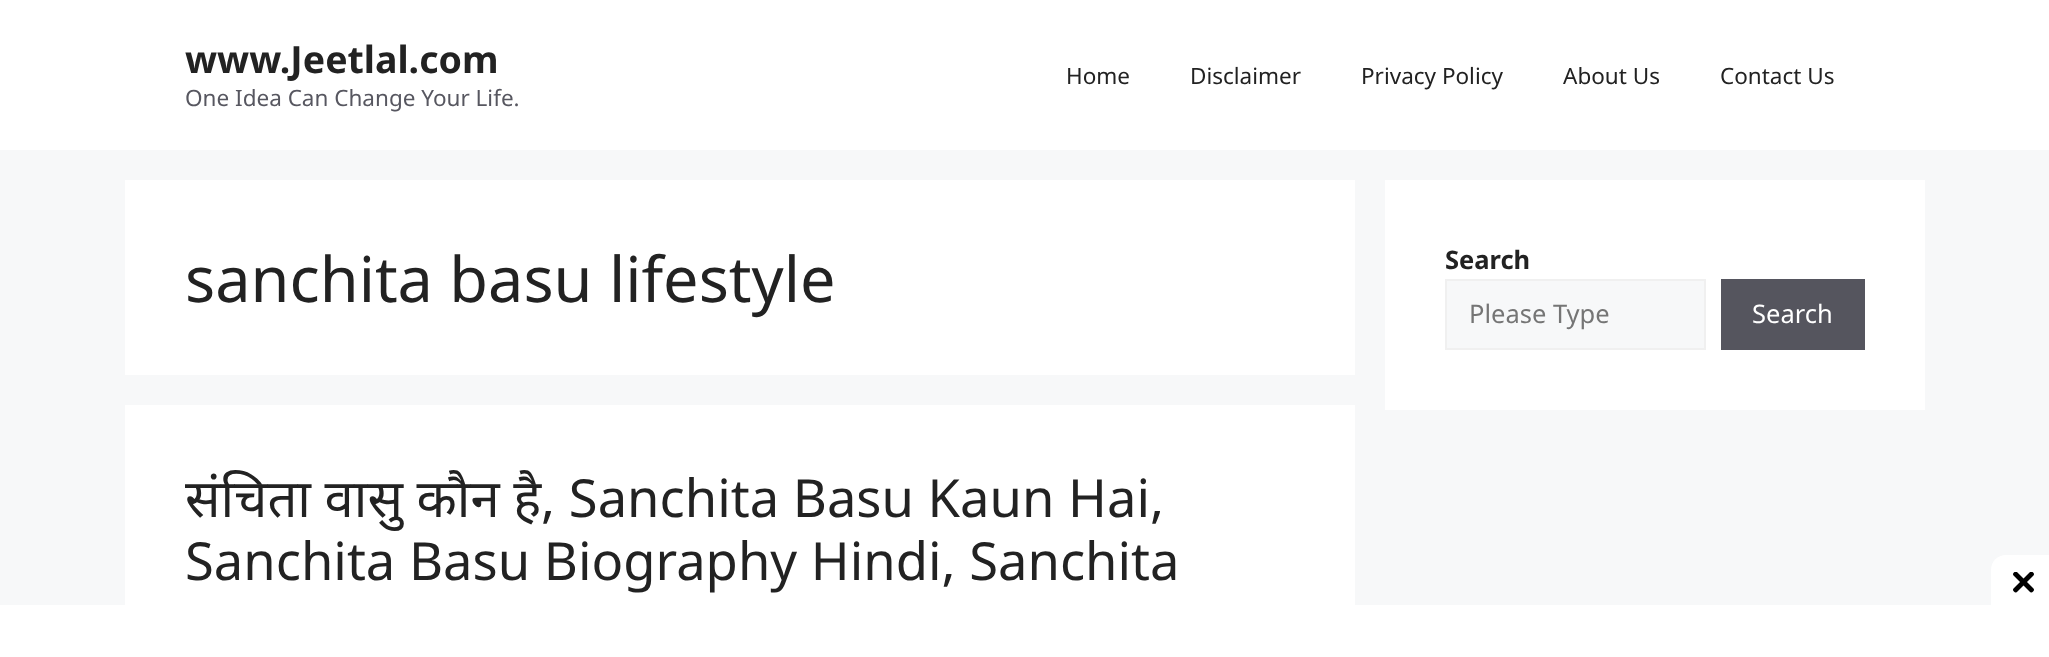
<svg xmlns="http://www.w3.org/2000/svg" width="2049" height="657">
<style>
.a{font:bold 37.5px Noto Sans;fill:#222}
.b{font:22.5px Noto Sans;fill:#575760}
.c{font:22.5px Noto Sans;fill:#222}
.d{font:63px Noto Sans;fill:#222}
.e{font:52.5px Noto Sans;fill:#222}
.f{font:bold 25.5px Noto Sans;fill:#222}
.g{font:25.5px Noto Sans;fill:#757575}
.h{font:25.5px Noto Sans;fill:#fff}
</style>
<rect width="100%" height="100%" fill="#f7f8f9"/>
<path fill="#fff" d="M0 0h2049v150H0z"/>
<path fill="#fff" d="M125 180h1230v195H125z"/>
<path fill="#fff" d="M125 405h1230v200H125z"/>
<path fill="#fff" d="M1385 180h540v230H1385z"/>
<path fill="#f7f8f9" stroke="#f0f0f0" stroke-width="2" d="M1446 280h259v69H1446z"/>
<path fill="#55555e" d="M1721 279h144v71H1721z"/>
<path fill="#fff" d="M0 605h2049v52H0z"/>
<path fill="#fff" d="M2006 555h43v56h-58v-41c0-8.5 6.5-15 15-15z"/>
<image href="1.png" x="2013" y="572" width="21" height="21"/>
<text class="a" x="185" y="73">www.Jeetlal.com</text>
<text class="b" x="185" y="106">One Idea Can Change Your Life.</text>
<text class="c" x="1066" y="84">Home</text>
<text class="c" x="1190" y="84">Disclaimer</text>
<text class="c" x="1361" y="84">Privacy Policy</text>
<text class="c" x="1563" y="84">About Us</text>
<text class="c" x="1720" y="84">Contact Us</text>
<text class="d" x="185" y="302">sanchita basu lifestyle</text>
<text class="e" x="185" y="517">संचिता वासु कौन है, Sanchita Basu Kaun Hai,</text>
<text class="e" x="185" y="580">Sanchita Basu Biography Hindi, Sanchita</text>
<text class="f" x="1445" y="269">Search</text>
<text class="g" x="1469" y="323">Please Type</text>
<text class="h" x="1752" y="323">Search</text>
</svg>
